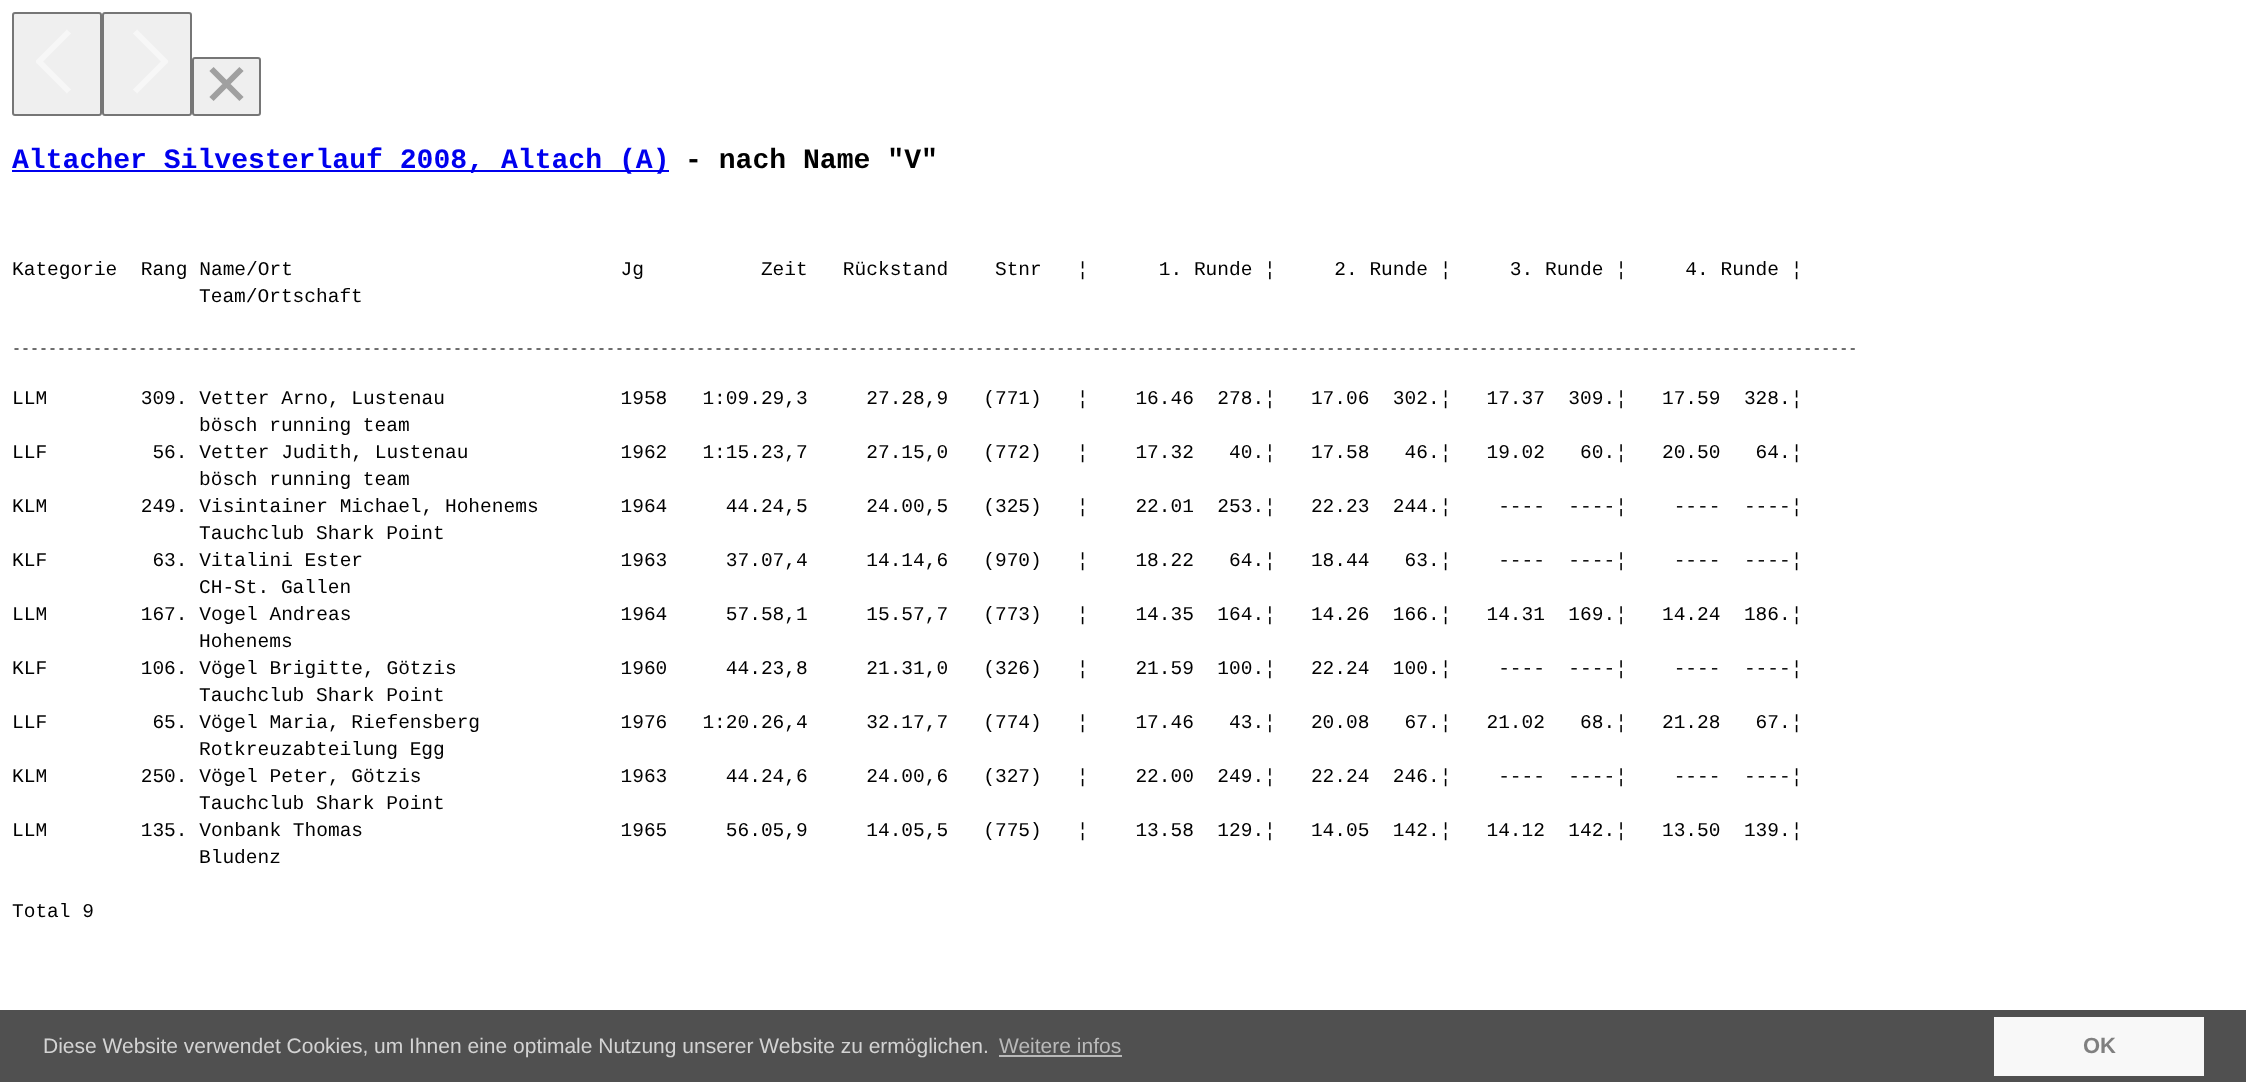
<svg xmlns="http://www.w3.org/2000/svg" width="2246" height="1082">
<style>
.a{font:bold 28.1px Liberation Mono;fill:#00e}
.b{font:bold 28.1px Liberation Mono;fill:#000}
.c{font:19.5px Liberation Mono;fill:#000}
.d{font:15px Liberation Mono;fill:#000}
.e{font:21px Liberation Sans;fill:#d3d3d3}
.f{font:21px Liberation Sans;fill:#b9b9b9}
.g{font:bold 22px Liberation Sans;fill:#808080}
</style>
<rect width="100%" height="100%" fill="#fff"/>
<rect fill="#efefef" stroke="#767676" stroke-width="2" x="13" y="13" width="88" height="102" rx="2"/>
<path fill="none" stroke="#f7f7f7" stroke-width="6" stroke-linejoin="round" d="M69 31.5l-30 30l30 30"/>
<rect fill="#efefef" stroke="#767676" stroke-width="2" x="103" y="13" width="88" height="102" rx="2"/>
<path fill="none" stroke="#f7f7f7" stroke-width="6" stroke-linejoin="round" d="M135 31.5l30 30l-30 30"/>
<rect fill="#efefef" stroke="#767676" stroke-width="2" x="193" y="58" width="67" height="57" rx="2"/>
<path fill="none" stroke="#a0a0a0" stroke-width="6" d="M211.5 69l30 30m-30 0l30-30"/>
<path fill="#00e" d="M12 170h657v2H12z"/>
<path fill="#505050" d="M0 1010h2246v72H0z"/>
<path fill="#b9b9b9" d="M999 1055h123v2H999z"/>
<path fill="#f8f8f8" d="M1994 1017h210v59H1994z"/>
<text class="a" x="12" y="168">Altacher Silvesterlauf 2008, Altach (A)</text>
<text class="b" x="685" y="168">- nach Name "V"</text>
<text class="c" xml:space="preserve" x="12" y="275">Kategorie  Rang Name/Ort                            Jg          Zeit   Rückstand    Stnr   ¦      1. Runde ¦     2. Runde ¦     3. Runde ¦     4. Runde ¦</text>
<text class="c" x="199" y="302">Team/Ortschaft</text>
<text class="d" x="12" y="353">-------------------------------------------------------------------------------------------------------------------------------------------------------------------------------------------------------------</text>
<text class="c" xml:space="preserve" x="12" y="404">LLM        309. Vetter Arno, Lustenau               1958   1:09.29,3     27.28,9   (771)   ¦    16.46  278.¦   17.06  302.¦   17.37  309.¦   17.59  328.¦</text>
<text class="c" x="199" y="431">bösch running team</text>
<text class="c" xml:space="preserve" x="12" y="458">LLF         56. Vetter Judith, Lustenau             1962   1:15.23,7     27.15,0   (772)   ¦    17.32   40.¦   17.58   46.¦   19.02   60.¦   20.50   64.¦</text>
<text class="c" x="199" y="485">bösch running team</text>
<text class="c" xml:space="preserve" x="12" y="512">KLM        249. Visintainer Michael, Hohenems       1964     44.24,5     24.00,5   (325)   ¦    22.01  253.¦   22.23  244.¦    ----  ----¦    ----  ----¦</text>
<text class="c" x="199" y="539">Tauchclub Shark Point</text>
<text class="c" xml:space="preserve" x="12" y="566">KLF         63. Vitalini Ester                      1963     37.07,4     14.14,6   (970)   ¦    18.22   64.¦   18.44   63.¦    ----  ----¦    ----  ----¦</text>
<text class="c" x="199" y="593">CH-St. Gallen</text>
<text class="c" xml:space="preserve" x="12" y="620">LLM        167. Vogel Andreas                       1964     57.58,1     15.57,7   (773)   ¦    14.35  164.¦   14.26  166.¦   14.31  169.¦   14.24  186.¦</text>
<text class="c" x="199" y="647">Hohenems</text>
<text class="c" xml:space="preserve" x="12" y="674">KLF        106. Vögel Brigitte, Götzis              1960     44.23,8     21.31,0   (326)   ¦    21.59  100.¦   22.24  100.¦    ----  ----¦    ----  ----¦</text>
<text class="c" x="199" y="701">Tauchclub Shark Point</text>
<text class="c" xml:space="preserve" x="12" y="728">LLF         65. Vögel Maria, Riefensberg            1976   1:20.26,4     32.17,7   (774)   ¦    17.46   43.¦   20.08   67.¦   21.02   68.¦   21.28   67.¦</text>
<text class="c" x="199" y="755">Rotkreuzabteilung Egg</text>
<text class="c" xml:space="preserve" x="12" y="782">KLM        250. Vögel Peter, Götzis                 1963     44.24,6     24.00,6   (327)   ¦    22.00  249.¦   22.24  246.¦    ----  ----¦    ----  ----¦</text>
<text class="c" x="199" y="809">Tauchclub Shark Point</text>
<text class="c" xml:space="preserve" x="12" y="836">LLM        135. Vonbank Thomas                      1965     56.05,9     14.05,5   (775)   ¦    13.58  129.¦   14.05  142.¦   14.12  142.¦   13.50  139.¦</text>
<text class="c" x="199" y="863">Bludenz</text>
<text class="c" x="12" y="917">Total 9</text>
<text class="e" x="43" y="1053">Diese Website verwendet Cookies, um Ihnen eine optimale Nutzung unserer Website zu ermöglichen.</text>
<text class="f" x="999" y="1053">Weitere infos</text>
<text class="g" x="2083" y="1053">OK</text>
</svg>
